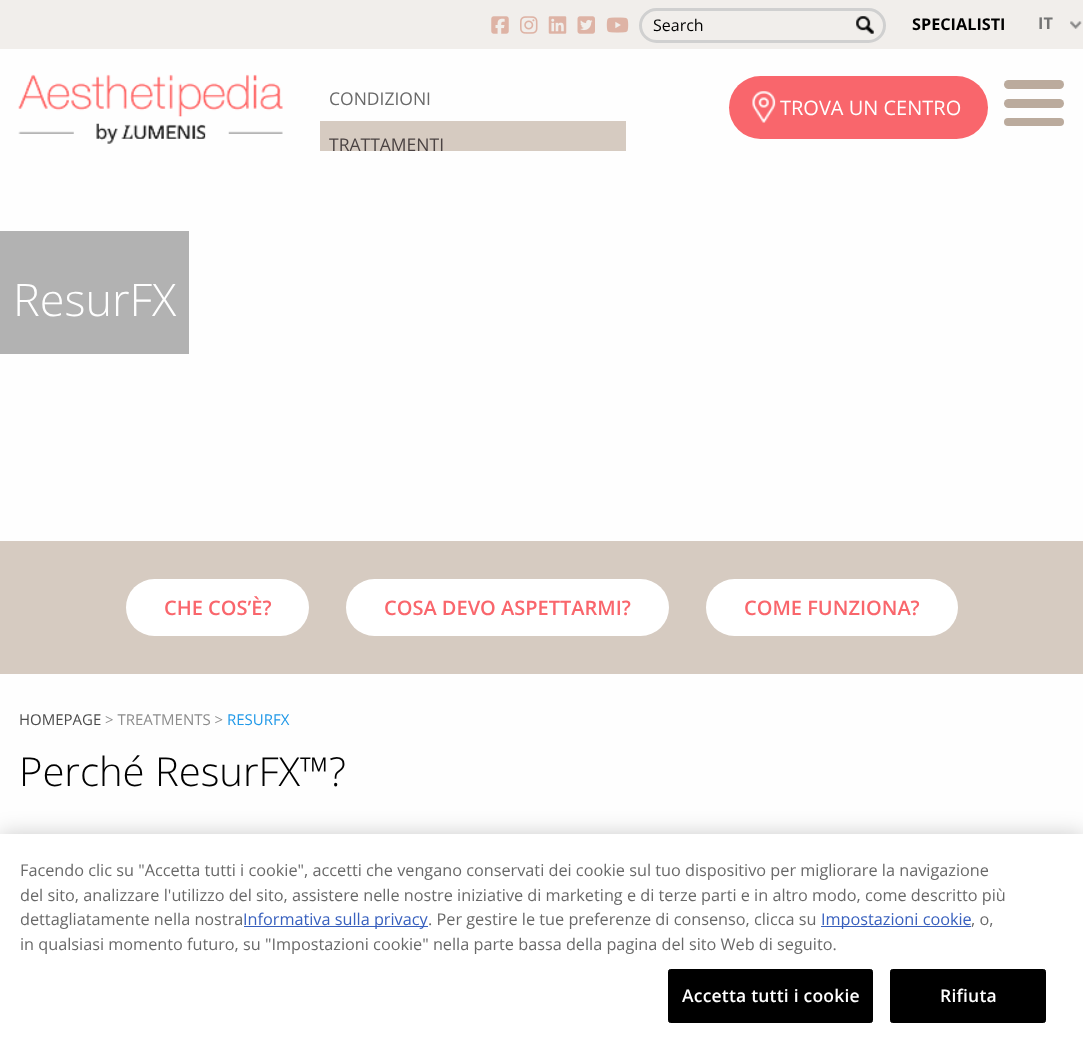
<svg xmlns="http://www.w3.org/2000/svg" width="1083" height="1048">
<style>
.a{font:16px Open Sans;fill:#000}
.b{font:bold 16.25px Open Sans;fill:#000}
.c{font:bold 16.25px Open Sans;fill:#757575}
.d{font:17.5px Open Sans;fill:#696969}
.e{font:17.5px Open Sans;fill:#4b4343}
.f{font:20px Open Sans;fill:#fff}
.g{font:300 45px Open Sans;fill:#fff}
.h{font:600 20px Open Sans;fill:#f9666c}
.i{font:15px Open Sans;fill:#4b4b4b}
.j{font:15px Open Sans;fill:#8c8c8c}
.k{font:15px Open Sans;fill:#2199e8}
.l{font:300 40px Open Sans;fill:#000}
.m{font:16.25px Open Sans;fill:#696969}
.n{font:16.25px Open Sans;fill:#3860be}
.o{font:600 17.5px Open Sans;letter-spacing:0.2px;fill:#fff}
</style>
<rect width="100%" height="100%" fill="#fefefe"/>
<path fill="#f1eeeb" d="M0 0h1083v49H0z"/>
<image href="1.png" x="491" y="16" width="18" height="18"/>
<image href="2.png" x="520" y="16" width="18" height="18"/>
<image href="3.png" x="548" y="16" width="19" height="18"/>
<image href="4.png" x="577" y="16" width="18" height="18"/>
<image href="5.png" x="606" y="17" width="23" height="16"/>
<rect fill="none" stroke="#d0d0d0" stroke-width="3" x="640.5" y="9.5" width="244" height="32" rx="16"/>
<image href="6.png" x="856" y="16" width="18" height="18"/>
<image href="7.png" x="1070" y="21" width="12" height="8"/>
<image href="8.png" x="18" y="74" width="265" height="70"/>
<path fill="#d6cbc1" d="M320 121h306v30H320z"/>
<rect fill="#f9666c" x="729" y="76" width="259" height="63" rx="31.5"/>
<image href="9.png" x="752" y="91" width="24" height="32"/>
<rect fill="#bbab9d" x="1004" y="80" width="60" height="9" rx="4.5"/>
<rect fill="#bbab9d" x="1004" y="99" width="60" height="9" rx="4.5"/>
<rect fill="#bbab9d" x="1004" y="118" width="60" height="8" rx="4"/>
<path fill="#b2b2b2" d="M0 231h189v123H0z"/>
<path fill="#d6cbc1" d="M0 541h1083v133H0z"/>
<rect fill="#fff" x="126" y="579" width="183" height="57" rx="28.5"/>
<rect fill="#fff" x="346" y="579" width="323" height="57" rx="28.5"/>
<rect fill="#fff" x="706" y="579" width="252" height="57" rx="28.5"/>
<path fill="#00000033" filter="blur(11px)" d="M0 834h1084v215H0z"/>
<path fill="#fff" d="M0 834h1083v214H0z"/>
<path fill="#3860be" d="M244 926h184v1H244z"/>
<path fill="#3860be" d="M821 926h150v1H821z"/>
<rect fill="#000" stroke="#000" x="668.5" y="969.5" width="204" height="53" rx="2"/>
<rect fill="#000" stroke="#000" x="890.5" y="969.5" width="155" height="53" rx="2"/>
<text class="a" x="653" y="31">Search</text>
<text class="b" x="912" y="30">SPECIALISTI</text>
<text class="c" x="1038" y="29">IT</text>
<text class="d" x="329" y="105">CONDIZIONI</text>
<text class="e" x="329" y="151">TRATTAMENTI</text>
<text class="f" x="780" y="115">TROVA UN CENTRO</text>
<text class="g" x="13" y="316">ResurFX</text>
<text class="h" x="164" y="615">CHE COS’È?</text>
<text class="h" x="384" y="615">COSA DEVO ASPETTARMI?</text>
<text class="h" x="744" y="615">COME FUNZIONA?</text>
<text class="i" x="19" y="725">HOMEPAGE</text>
<text class="j" x="105" y="725">&gt; TREATMENTS &gt;</text>
<text class="k" x="227" y="725">RESURFX</text>
<text class="l" x="19" y="786">Perché ResurFX™?</text>
<text class="m" x="20" y="876">Facendo clic su "Accetta tutti i cookie", accetti che vengano conservati dei cookie sul tuo dispositivo per migliorare la navigazione</text>
<text class="m" x="20" y="901">del sito, analizzare l'utilizzo del sito, assistere nelle nostre iniziative di marketing e di terze parti e in altro modo, come descritto più</text>
<text class="m" x="20" y="925">dettagliatamente nella nostra</text>
<text class="n" x="243" y="925">Informativa sulla privacy</text>
<text class="m" x="428" y="925">. Per gestire le tue preferenze di consenso, clicca su</text>
<text class="n" x="821" y="925">Impostazioni cookie</text>
<text class="m" x="971" y="925">, o,</text>
<text class="m" x="20" y="950">in qualsiasi momento futuro, su "Impostazioni cookie" nella parte bassa della pagina del sito Web di seguito.</text>
<text class="o" x="682" y="1002">Accetta tutti i cookie</text>
<text class="o" x="940" y="1002">Rifiuta</text>
</svg>
